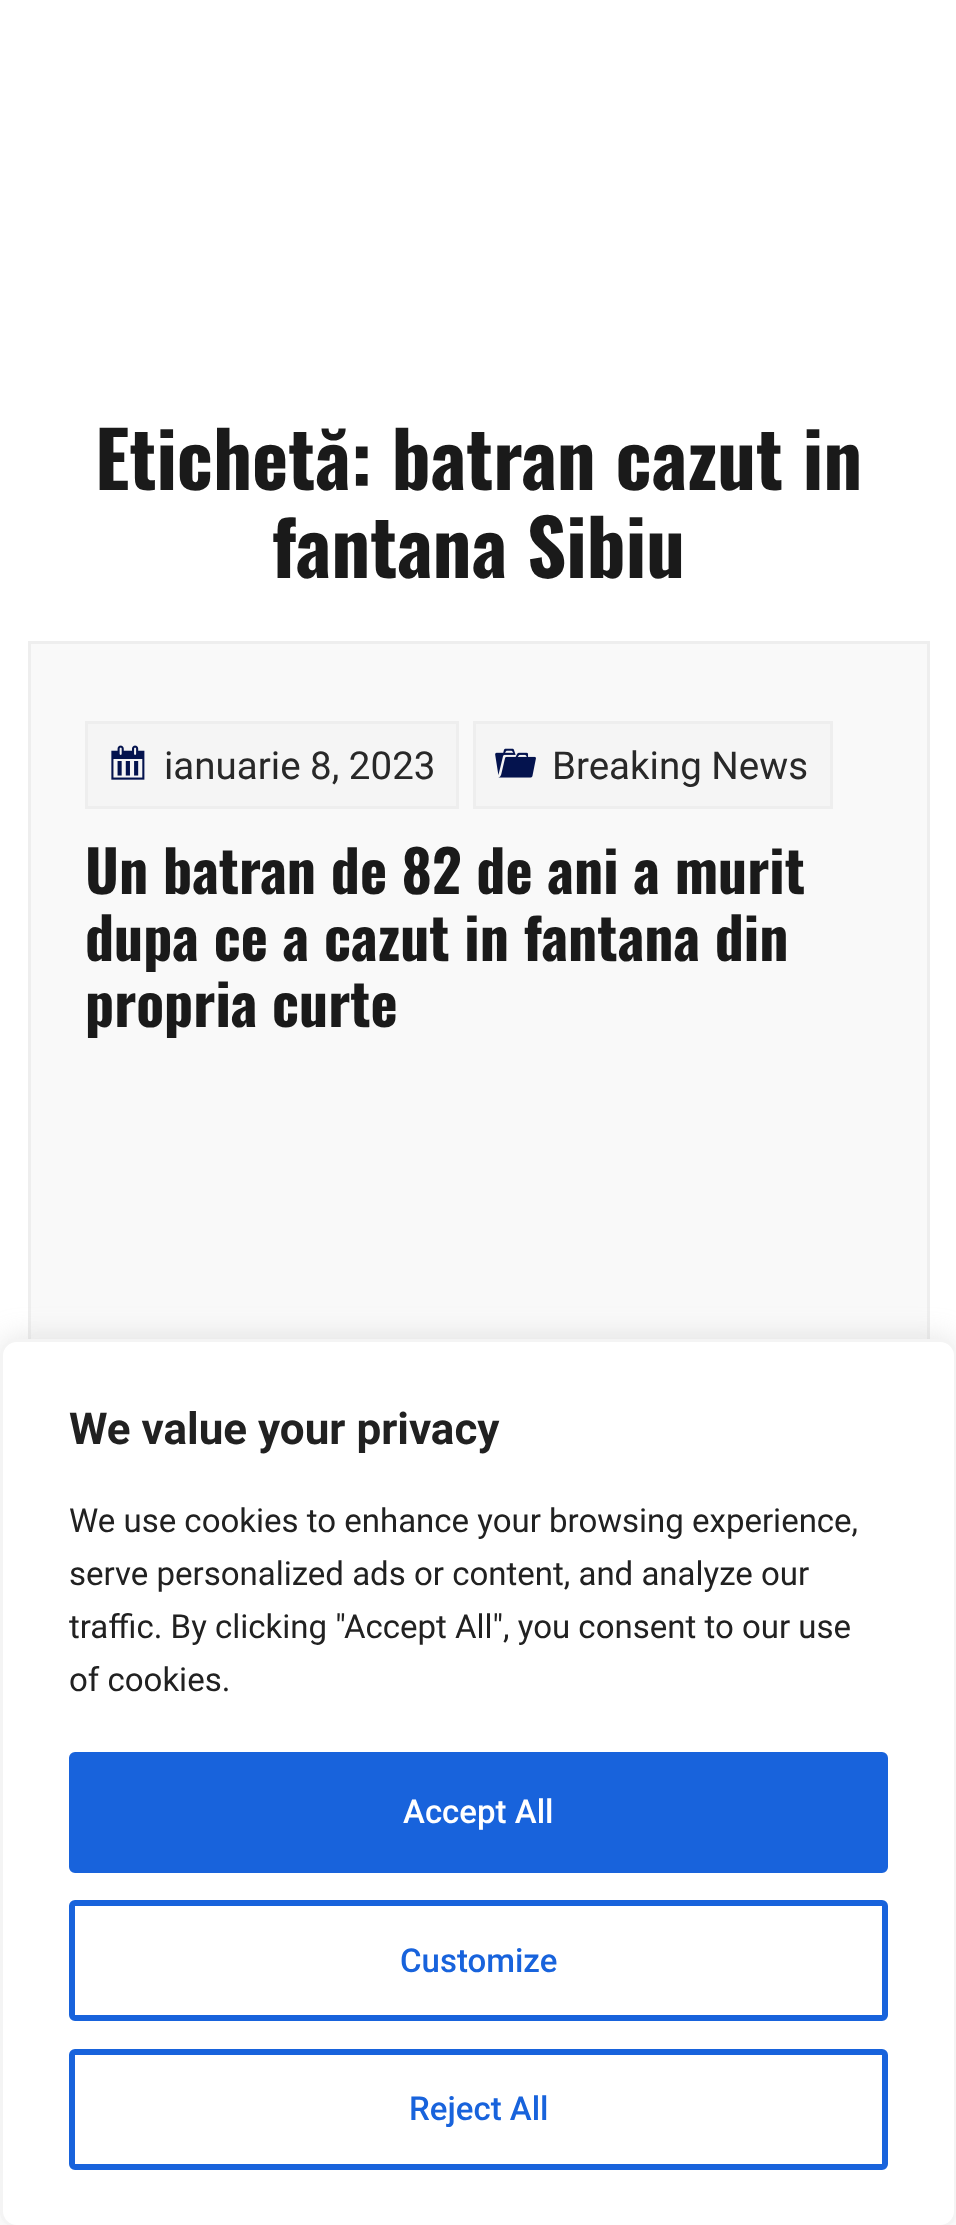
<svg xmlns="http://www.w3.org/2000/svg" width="956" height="2225">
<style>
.a{font:bold 77px Oswald;fill:#1a1a1a}
.b{font:38.5px Roboto;fill:#282828}
.c{font:bold 57.75px Oswald;fill:#1a1a1a}
.d{font:bold 44px Roboto;fill:#212121}
.e{font:33px Roboto;fill:#212121}
.f{font:500 33px Roboto;fill:#fff}
.g{font:500 33px Roboto;fill:#1863dc}
</style>
<rect width="100%" height="100%" fill="#fff"/>
<path fill="#f9f9f9" d="M31 644h896v695H31z"/>
<path fill="none" stroke="#eee" stroke-width="3" d="M29.5 642.5h899v1504H29.5z"/>
<path fill="#f5f5f5" stroke="#eee" stroke-width="3" d="M86.5 722.5h371v85H86.5z"/>
<image href="1.png" x="111" y="745" width="34" height="35"/>
<path fill="#f5f5f5" stroke="#eee" stroke-width="3" d="M474.5 722.5h357v85H474.5z"/>
<image href="2.png" x="495" y="748" width="41" height="30"/>
<rect fill="#acabab4d" filter="blur(14px)" y="1337" width="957" height="888" rx="17"/>
<rect fill="#fff" stroke="#f4f4f4" stroke-width="3" x="1.5" y="1340.5" width="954" height="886" rx="15.5"/>
<rect fill="#1863dc" stroke="#1863dc" stroke-width="6" x="72" y="1755" width="813" height="115" rx="3"/>
<rect fill="none" stroke="#1863dc" stroke-width="6" x="72" y="1903" width="813" height="115" rx="3"/>
<rect fill="none" stroke="#1863dc" stroke-width="6" x="72" y="2052" width="813" height="115" rx="3"/>
<text class="a" x="95" y="490">Etichetă: batran cazut in</text>
<text class="a" x="272" y="578">fantana Sibiu</text>
<text class="b" x="164" y="779">ianuarie 8, 2023</text>
<text class="b" x="552" y="779">Breaking News</text>
<text class="c" x="85" y="894">Un batran de 82 de ani a murit</text>
<text class="c" x="85" y="961">dupa ce a cazut in fantana din</text>
<text class="c" x="85" y="1027">propria curte</text>
<text class="d" x="69" y="1444">We value your privacy</text>
<text class="e" x="69" y="1532">We use cookies to enhance your browsing experience,</text>
<text class="e" x="69" y="1585">serve personalized ads or content, and analyze our</text>
<text class="e" x="69" y="1638">traffic. By clicking "Accept All", you consent to our use</text>
<text class="e" x="69" y="1691">of cookies.</text>
<text class="f" x="403" y="1823">Accept All</text>
<text class="g" x="400" y="1972">Customize</text>
<text class="g" x="409" y="2120">Reject All</text>
</svg>
